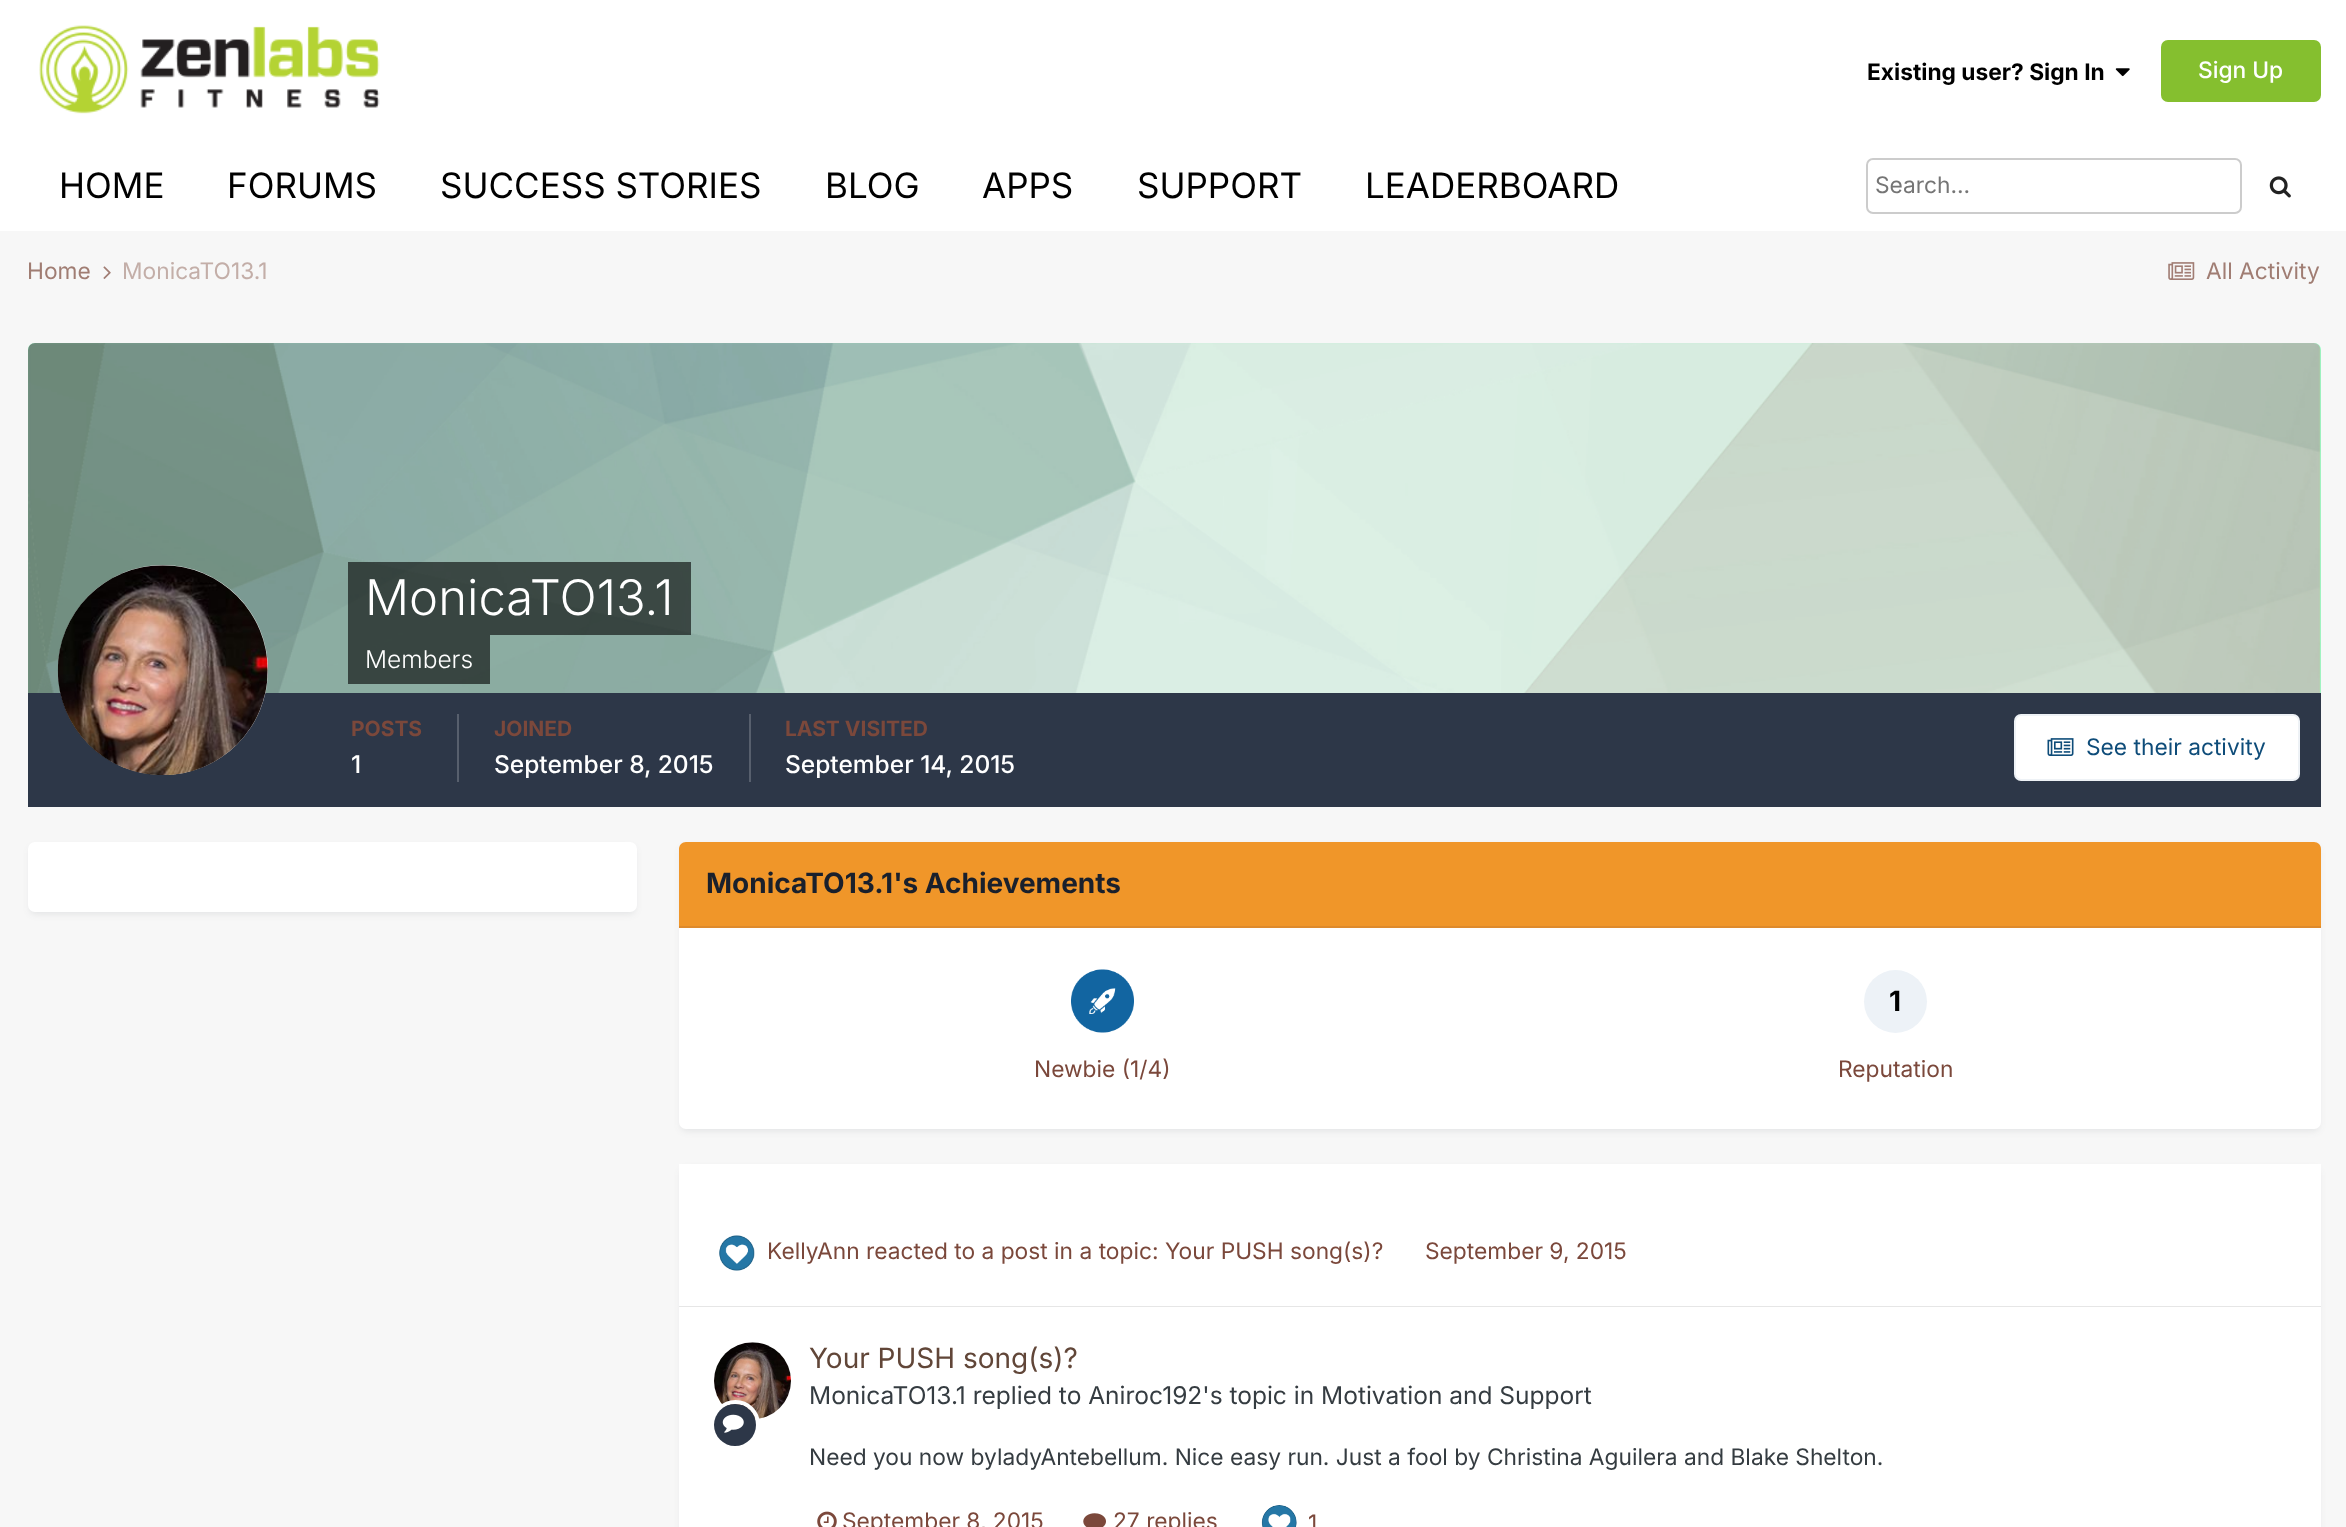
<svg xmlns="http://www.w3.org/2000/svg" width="2346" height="1527">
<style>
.a{font:bold 22.75px Inter;fill:#000}
.b{font:500 22.75px Inter;fill:#fff}
.c{font:35px Inter;fill:#000}
.d{font:22.75px Inter;fill:#757575}
.e{font:22.75px Inter;fill:#a07d73}
.f{font:22.75px Inter;fill:#c3aea8}
.g{font:300 49px Inter;fill:#fff}
.h{font:300 24.5px Inter;fill:#fff}
.i{font:bold 21px Inter;fill:#7b483b}
.j{font:500 24.5px Inter;fill:#fff}
.k{font:22.75px Inter;fill:#0e4c79}
.l{font:bold 28px Inter;fill:#1a202c}
.m{font:22.75px Inter;fill:#7b483b}
.n{font:bold 28px Inter;fill:#000}
.o{font:28px Inter;fill:#614638}
.p{font:24.5px Inter;fill:#353c41}
.q{font:22.75px Inter;fill:#353c41}
</style>
<rect width="100%" height="100%" fill="#f7f7f7"/>
<path fill="#fff" d="M0 0h2346v231H0z"/>
<image href="1.png" x="39" y="25" width="341" height="89"/>
<image href="2.png" x="2115" y="68" width="15" height="9"/>
<rect fill="#85bf2f" x="2161" y="40" width="160" height="62" rx="7"/>
<rect fill="none" stroke="#ccc" stroke-width="2" x="1867" y="159" width="374" height="54" rx="6"/>
<image href="3.png" x="2269" y="176" width="22" height="22"/>
<image href="4.png" x="103" y="266" width="8" height="13"/>
<image href="5.png" x="2168" y="262" width="27" height="18"/>
<path fill="#99ffc7" d="M35 343h2279c4 0 7 3 7 7v343h-2293v-343c0-4 3-7 7-7z"/>
<image href="6.png" x="28" y="343" width="2293" height="350"/>
<path fill="#2d3748" d="M28 693h2293v114H28z"/>
<circle fill="#fff" cx="163" cy="670" r="105"/>
<image href="7.png" x="57" y="565" width="211" height="210"/>
<path fill="#00000099" d="M348 562h343v73H348z"/>
<path fill="#00000099" d="M348 635h142v49H348z"/>
<path fill="#575f6d" d="M457 714h2v68H457z"/>
<path fill="#575f6d" d="M749 714h2v68H749z"/>
<rect fill="#fff" x="2014" y="714" width="286" height="67" rx="7"/>
<rect fill="none" stroke="#0e4c7912" stroke-width="2" x="2015" y="715" width="284" height="65" rx="6"/>
<image href="8.png" x="2047" y="738" width="27" height="18"/>
<rect fill="#2d37481a" filter="blur(3.5px)" x="30" y="847" width="605" height="67" rx="5"/>
<rect fill="#fff" x="28" y="842" width="609" height="70" rx="7"/>
<rect fill="#2d37481a" filter="blur(3.5px)" x="681" y="847" width="1638" height="284" rx="5"/>
<rect fill="#fff" x="679" y="842" width="1642" height="287" rx="7"/>
<path fill="#f09629" d="M686 842h1628c4 0 7 3 7 7v79h-1642v-79c0-4 3-7 7-7z"/>
<path fill="#de8a2c" d="M679 926h1642v2H679z"/>
<image href="9.png" x="1071" y="969" width="63" height="64"/>
<circle fill="#edf2f7" cx="1895.5" cy="1001.5" r="31.5"/>
<rect fill="#2d37481a" filter="blur(3.5px)" x="681" y="1169" width="1638" height="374" rx="5"/>
<path fill="#fff" d="M679 1164h1642v142H679z"/>
<path fill="#e6e6e6" d="M679 1306h1642v1H679z"/>
<image href="10.png" x="719" y="1235" width="36" height="36"/>
<path fill="#fff" d="M679 1307h1642v220H679z"/>
<image href="11.png" x="714" y="1342" width="77" height="77"/>
<circle fill="none" stroke="#fff" stroke-width="4" cx="735.5" cy="1424.5" r="22.5"/>
<circle fill="#2d3748" cx="735" cy="1425" r="21"/>
<image href="12.png" x="722" y="1414" width="22" height="19"/>
<image href="13.png" x="817" y="1511" width="20" height="16"/>
<image href="14.png" x="1083" y="1513" width="23" height="14"/>
<image href="15.png" x="1261" y="1505" width="36" height="22"/>
<text class="a" x="1867" y="80">Existing user? Sign In</text>
<text class="b" x="2198" y="78">Sign Up</text>
<text class="c" x="59" y="198">HOME</text>
<text class="c" x="227" y="198">FORUMS</text>
<text class="c" x="440" y="198">SUCCESS STORIES</text>
<text class="c" x="825" y="198">BLOG</text>
<text class="c" x="982" y="198">APPS</text>
<text class="c" x="1137" y="198">SUPPORT</text>
<text class="c" x="1365" y="198">LEADERBOARD</text>
<text class="d" x="1875" y="193">Search...</text>
<text class="e" x="27" y="279">Home</text>
<text class="f" x="122" y="279">MonicaTO13.1</text>
<text class="e" x="2206" y="279">All Activity</text>
<text class="g" x="365" y="615">MonicaTO13.1</text>
<text class="h" x="365" y="668">Members</text>
<text class="i" x="351" y="736">POSTS</text>
<text class="j" x="351" y="773">1</text>
<text class="i" x="494" y="736">JOINED</text>
<text class="j" x="494" y="773">September 8, 2015</text>
<text class="i" x="785" y="736">LAST VISITED</text>
<text class="j" x="785" y="773">September 14, 2015</text>
<text class="k" x="2086" y="755">See their activity</text>
<text class="l" x="706" y="893">MonicaTO13.1's Achievements</text>
<text class="m" x="1034" y="1077">Newbie (1/4)</text>
<text class="n" x="1889" y="1011">1</text>
<text class="m" x="1838" y="1077">Reputation</text>
<text class="m" x="767" y="1259">KellyAnn reacted to a post in a topic: Your PUSH song(s)?</text>
<text class="m" x="1425" y="1259">September 9, 2015</text>
<text class="o" x="809" y="1368">Your PUSH song(s)?</text>
<text class="p" x="809" y="1404">MonicaTO13.1 replied to Aniroc192's topic in Motivation and Support</text>
<text class="q" x="809" y="1465">Need you now byladyAntebellum. Nice easy run. Just a fool by Christina Aguilera and Blake Shelton.</text>
<text class="m" x="842" y="1529">September 8, 2015</text>
<text class="m" x="1113" y="1529">27 replies</text>
<text class="m" x="1308" y="1531">1</text>
</svg>
